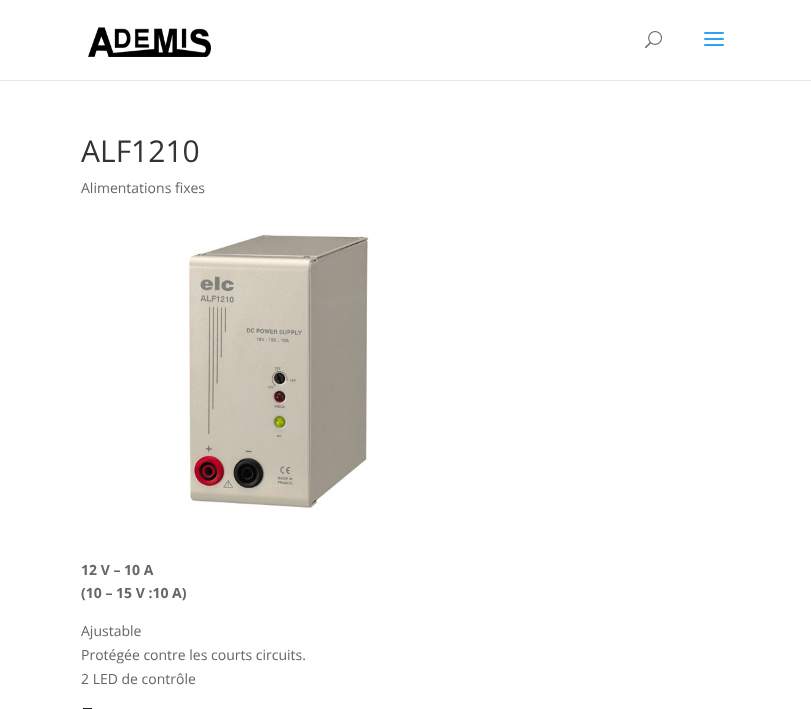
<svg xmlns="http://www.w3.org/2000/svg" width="811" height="709">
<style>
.a{font:30px Open Sans;fill:#333}
.b{font:14px Open Sans;fill:#666}
.c{font:bold 14px Open Sans;fill:#666}
</style>
<rect width="100%" height="100%" fill="#fff"/>
<path fill="#e6e6e6" d="M0 80h811v1H0z"/>
<image href="1.png" x="88" y="27" width="123" height="30"/>
<image href="2.png" x="645" y="31" width="17" height="18"/>
<image href="3.png" x="704" y="32" width="20" height="14"/>
<image href="4.png" x="188" y="232" width="181" height="277"/>
<image href="5.png" x="83" y="708" width="9" height="1"/>
<text class="a" x="81" y="162">ALF1210</text>
<text class="b" x="81" y="193">Alimentations fixes</text>
<text class="c" x="81" y="575">12 V – 10 A</text>
<text class="c" x="81" y="598">(10 – 15 V :10 A)</text>
<text class="b" x="81" y="636">Ajustable</text>
<text class="b" x="81" y="660">Protégée contre les courts circuits.</text>
<text class="b" x="81" y="684">2 LED de contrôle</text>
</svg>
